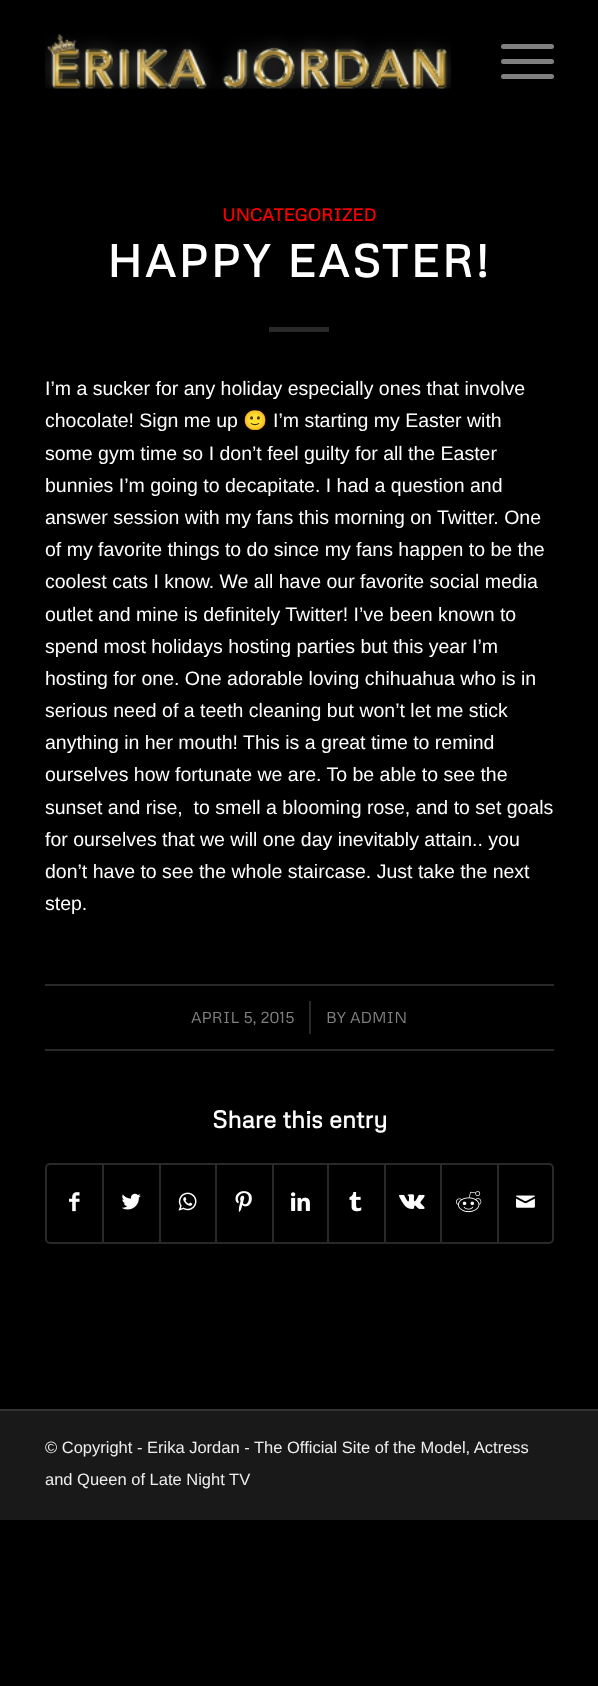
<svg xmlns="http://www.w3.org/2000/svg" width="598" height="1686">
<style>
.a{font:bold 17.5px Metrophobic;fill:#f50000}
.b{font:bold 45px Metrophobic;letter-spacing:3px;fill:#fff}
.c{font:19.5px Liberation Sans;fill:#fff}
.d{font:19.5px Noto Color Emoji;fill:#fff}
.e{font:15.75px Metrophobic;fill:#808080}
.f{font:bold 24px Metrophobic;fill:#fff}
.g{font:16.5px Liberation Sans;fill:#eee}
</style>
<rect width="100%" height="100%" fill="#000"/>
<image href="1.png" x="45" y="34" width="406" height="55"/>
<rect fill="#808080" x="501" y="59" width="53" height="5" rx="2.5"/>
<rect fill="#808080" x="501" y="44" width="53" height="5" rx="2.5"/>
<rect fill="#808080" x="501" y="74" width="53" height="5" rx="2.5"/>
<path fill="#292929" d="M269 327h60v5H269z"/>
<path fill="#292929" d="M45 984h509v2H45z"/>
<path fill="#292929" d="M45 1049h509v2H45z"/>
<path fill="#292929" d="M309 1001h2v33H309z"/>
<rect fill="none" stroke="#292929" stroke-width="2" x="46" y="1164" width="507" height="79" rx="4"/>
<image href="2.png" x="69" y="1192" width="11" height="20"/>
<path fill="#292929" d="M102 1164h2v78H102z"/>
<image href="3.png" x="121" y="1193" width="20" height="17"/>
<path fill="#292929" d="M159 1164h2v78H159z"/>
<image href="4.png" x="178" y="1192" width="19" height="19"/>
<path fill="#292929" d="M215 1164h2v78H215z"/>
<image href="5.png" x="235" y="1191" width="17" height="21"/>
<path fill="#292929" d="M272 1164h2v78H272z"/>
<image href="6.png" x="291" y="1192" width="19" height="19"/>
<path fill="#292929" d="M327 1164h2v78H327z"/>
<image href="7.png" x="349" y="1192" width="13" height="20"/>
<path fill="#292929" d="M384 1164h2v78H384z"/>
<image href="8.png" x="399" y="1194" width="26" height="15"/>
<path fill="#292929" d="M440 1164h2v78H440z"/>
<image href="9.png" x="456" y="1191" width="26" height="22"/>
<path fill="#292929" d="M497 1164h2v78H497z"/>
<image href="10.png" x="516" y="1195" width="19" height="13"/>
<path fill="#191919" d="M0 1411h598v109H0z"/>
<path fill="#333" d="M0 1409h598v2H0z"/>
<text class="a" x="222" y="221">UNCATEGORIZED</text>
<text class="b" x="107" y="277">HAPPY EASTER!</text>
<text class="c" x="45" y="395">I’m a sucker for any holiday especially ones that involve</text>
<text class="c" x="45" y="427">chocolate! Sign me up</text>
<text class="d" x="243" y="427">🙂</text>
<text class="c" x="273" y="427">I’m starting my Easter with</text>
<text class="c" x="45" y="460">some gym time so I don’t feel guilty for all the Easter</text>
<text class="c" x="45" y="492">bunnies I’m going to decapitate. I had a question and</text>
<text class="c" x="45" y="524">answer session with my fans this morning on Twitter. One</text>
<text class="c" x="45" y="556">of my favorite things to do since my fans happen to be the</text>
<text class="c" x="45" y="588">coolest cats I know. We all have our favorite social media</text>
<text class="c" x="45" y="621">outlet and mine is definitely Twitter! I’ve been known to</text>
<text class="c" x="45" y="653">spend most holidays hosting parties but this year I’m</text>
<text class="c" x="45" y="685">hosting for one. One adorable loving chihuahua who is in</text>
<text class="c" x="45" y="717">serious need of a teeth cleaning but won’t let me stick</text>
<text class="c" x="45" y="749">anything in her mouth! This is a great time to remind</text>
<text class="c" x="45" y="781">ourselves how fortunate we are. To be able to see the</text>
<text class="c" xml:space="preserve" x="45" y="814">sunset and rise,  to smell a blooming rose, and to set goals</text>
<text class="c" x="45" y="846">for ourselves that we will one day inevitably attain.. you</text>
<text class="c" x="45" y="878">don’t have to see the whole staircase. Just take the next</text>
<text class="c" x="45" y="910">step.</text>
<text class="e" x="191" y="1023">APRIL 5, 2015</text>
<text class="e" x="326" y="1023">BY ADMIN</text>
<text class="f" x="212" y="1128">Share this entry</text>
<text class="g" x="45" y="1453">© Copyright - Erika Jordan - The Official Site of the Model, Actress</text>
<text class="g" x="45" y="1485">and Queen of Late Night TV</text>
</svg>
